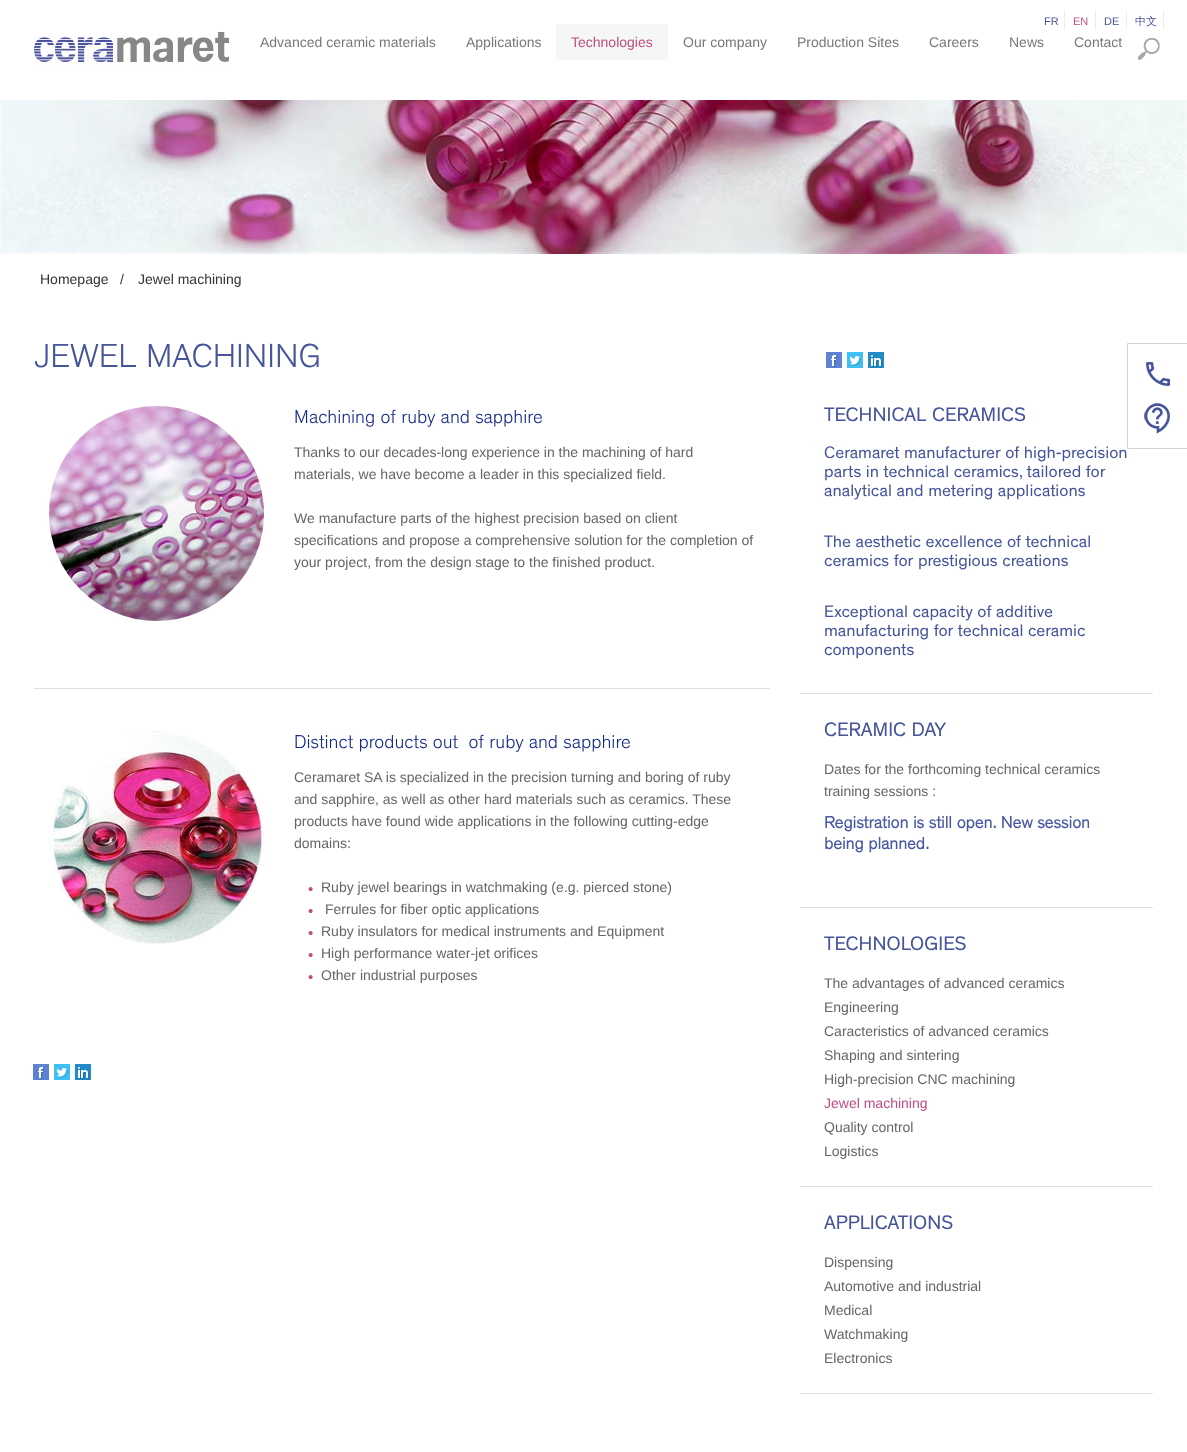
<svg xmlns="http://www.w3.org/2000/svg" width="1187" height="1452">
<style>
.a{font:11px Liberation Sans;fill:#45549b}
.b{font:11px Liberation Sans;fill:#bf4e7f}
.c{font:500 11px WenQuanYi Zen Hei;fill:#45549b}
.d{font:14px Liberation Sans;fill:#777}
.e{font:14px Liberation Sans;fill:#bf4e7f}
.f{font:14px Liberation Sans;fill:#333}
.g{font:300 34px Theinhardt;fill:#45549b}
.h{font:300 19px Theinhardt;fill:#152a88}
.i{font:14px Liberation Sans;fill:#656565}
.j{font:15px Liberation Sans;fill:#bf4e7f}
.k{font:20px Theinhardt;fill:#45549b}
.l{font:17px Theinhardt;fill:#45549b}
.m{font:bold 17px Theinhardt;fill:#4859a2}
</style>
<rect width="100%" height="100%" fill="#fff"/>
<image href="1.png" x="34" y="30" width="195" height="36"/>
<path fill="#ededed" d="M1064 10h1v20H1064z"/>
<path fill="#ededed" d="M1095 10h1v20H1095z"/>
<path fill="#ededed" d="M1126 10h1v20H1126z"/>
<path fill="#ededed" d="M1163 10h1v20H1163z"/>
<path fill="#f5f6f6" d="M556 24h112v36H556z"/>
<image href="2.png" x="1138" y="38" width="22" height="22"/>
<image href="3.png" x="0" y="100" width="1187" height="154"/>
<image href="4.png" x="49" y="406" width="215" height="215"/>
<path fill="#dee1e3" d="M34 688h736v1H34z"/>
<image href="5.png" x="49" y="731" width="215" height="213"/>
<image href="6.png" x="33" y="1064" width="16" height="16"/>
<image href="7.png" x="54" y="1064" width="16" height="16"/>
<image href="8.png" x="75" y="1064" width="16" height="16"/>
<image href="6.png" x="826" y="352" width="16" height="16"/>
<image href="7.png" x="847" y="352" width="16" height="16"/>
<image href="8.png" x="868" y="352" width="16" height="16"/>
<path fill="#dee1e3" d="M800 693h353v1H800z"/>
<path fill="#dee1e3" d="M800 907h353v1H800z"/>
<path fill="#dee1e3" d="M800 1186h353v1H800z"/>
<path fill="#dee1e3" d="M800 1393h353v1H800z"/>
<path fill="none" stroke="#d2d2d2" d="M1127.5 343.5h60v105H1127.5z"/>
<image href="9.png" x="1146" y="362" width="24" height="24"/>
<image href="10.png" x="1144" y="403" width="26" height="31"/>
<text class="a" x="1044" y="25">FR</text>
<text class="b" x="1073" y="25">EN</text>
<text class="a" x="1104" y="25">DE</text>
<text class="c" x="1135" y="25">中文</text>
<text class="d" x="260" y="47">Advanced ceramic materials</text>
<text class="d" x="466" y="47">Applications</text>
<text class="e" x="571" y="47">Technologies</text>
<text class="d" x="683" y="47">Our company</text>
<text class="d" x="797" y="47">Production Sites</text>
<text class="d" x="929" y="47">Careers</text>
<text class="d" x="1009" y="47">News</text>
<text class="d" x="1074" y="47">Contact</text>
<text class="f" x="40" y="284">Homepage</text>
<text class="f" x="120" y="284">/</text>
<text class="f" x="138" y="284">Jewel machining</text>
<text class="g" x="34" y="367">JEWEL MACHINING</text>
<text class="h" x="294" y="423">Machining of ruby and sapphire</text>
<text class="i" x="294" y="457">Thanks to our decades-long experience in the machining of hard</text>
<text class="i" x="294" y="479">materials, we have become a leader in this specialized field.</text>
<text class="i" x="294" y="523">We manufacture parts of the highest precision based on client</text>
<text class="i" x="294" y="545">specifications and propose a comprehensive solution for the completion of</text>
<text class="i" x="294" y="567">your project, from the design stage to the finished product.</text>
<text class="h" xml:space="preserve" x="294" y="748">Distinct products out  of ruby and sapphire</text>
<text class="i" x="294" y="782">Ceramaret SA is specialized in the precision turning and boring of ruby</text>
<text class="i" x="294" y="804">and sapphire, as well as other hard materials such as ceramics. These</text>
<text class="i" x="294" y="826">products have found wide applications in the following cutting-edge</text>
<text class="i" x="294" y="848">domains:</text>
<text class="j" x="308" y="894">•</text>
<text class="i" x="321" y="892">Ruby jewel bearings in watchmaking (e.g. pierced stone)</text>
<text class="j" x="308" y="916">•</text>
<text class="i" x="325" y="914">Ferrules for fiber optic applications</text>
<text class="j" x="308" y="938">•</text>
<text class="i" x="321" y="936">Ruby insulators for medical instruments and Equipment</text>
<text class="j" x="308" y="960">•</text>
<text class="i" x="321" y="958">High performance water-jet orifices</text>
<text class="j" x="308" y="982">•</text>
<text class="i" x="321" y="980">Other industrial purposes</text>
<text class="k" x="824" y="421">TECHNICAL CERAMICS</text>
<text class="l" x="824" y="458">Ceramaret manufacturer of high-precision</text>
<text class="l" x="824" y="477">parts in technical ceramics, tailored for</text>
<text class="l" x="824" y="496">analytical and metering applications</text>
<text class="l" x="824" y="547">The aesthetic excellence of technical</text>
<text class="l" x="824" y="566">ceramics for prestigious creations</text>
<text class="l" x="824" y="617">Exceptional capacity of additive</text>
<text class="l" x="824" y="636">manufacturing for technical ceramic</text>
<text class="l" x="824" y="655">components</text>
<text class="k" x="824" y="736">CERAMIC DAY</text>
<text class="i" x="824" y="774">Dates for the forthcoming technical ceramics</text>
<text class="i" x="824" y="796">training sessions :</text>
<text class="m" x="824" y="828">Registration is still open. New session</text>
<text class="m" x="824" y="849">being planned.</text>
<text class="k" x="824" y="950">TECHNOLOGIES</text>
<text class="i" x="824" y="988">The advantages of advanced ceramics</text>
<text class="i" x="824" y="1012">Engineering</text>
<text class="i" x="824" y="1036">Caracteristics of advanced ceramics</text>
<text class="i" x="824" y="1060">Shaping and sintering</text>
<text class="i" x="824" y="1084">High-precision CNC machining</text>
<text class="e" x="824" y="1108">Jewel machining</text>
<text class="i" x="824" y="1132">Quality control</text>
<text class="i" x="824" y="1156">Logistics</text>
<text class="k" x="824" y="1229">APPLICATIONS</text>
<text class="i" x="824" y="1267">Dispensing</text>
<text class="i" x="824" y="1291">Automotive and industrial</text>
<text class="i" x="824" y="1315">Medical</text>
<text class="i" x="824" y="1339">Watchmaking</text>
<text class="i" x="824" y="1363">Electronics</text>
</svg>
